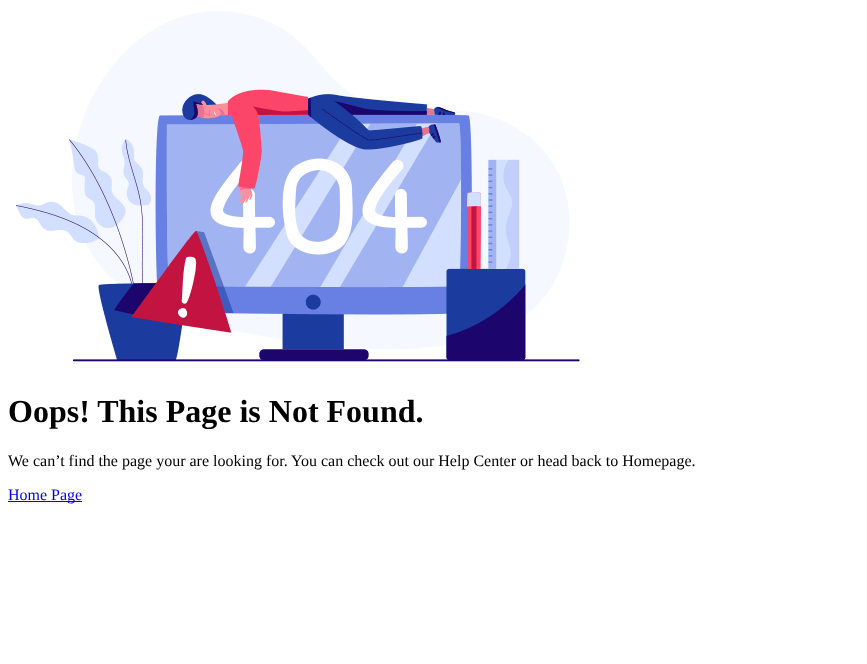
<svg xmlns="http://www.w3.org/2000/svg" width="867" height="664">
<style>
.a{font:bold 32px Liberation Serif;fill:#000}
.b{font:16px Liberation Serif;fill:#000}
.c{font:16px Liberation Serif;fill:#00e}
</style>
<rect width="100%" height="100%" fill="#fff"/>
<image href="1.png" x="15" y="11" width="565" height="351"/>
<path fill="#00e" d="M8 501h74v1H8z"/>
<text class="a" x="8" y="422">Oops! This Page is Not Found.</text>
<text class="b" x="8" y="466">We can’t find the page your are looking for. You can check out our Help Center or head back to Homepage.</text>
<text class="c" x="8" y="500">Home Page</text>
</svg>
